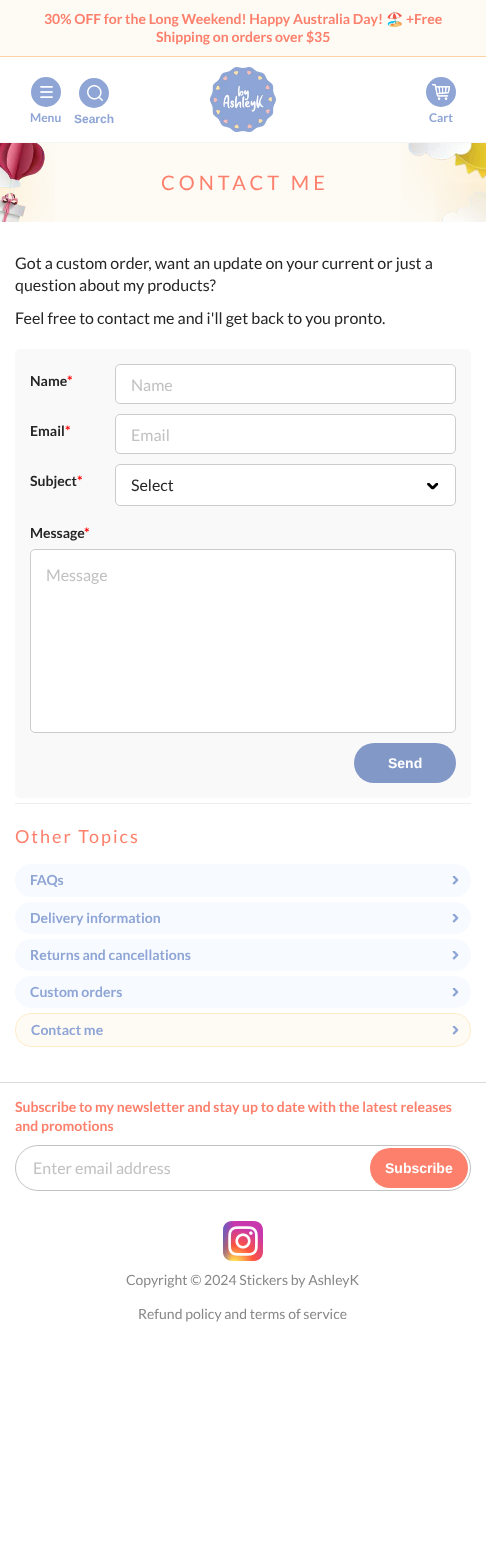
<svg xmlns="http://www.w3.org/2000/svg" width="486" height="1545">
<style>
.a{font:bold 14px Lato;fill:#fd806d}
.b{font:bold 14px Noto Color Emoji;fill:#fd806d}
.c{font:bold 12px Lato;fill:#8ea5d5}
.d{font:bold 12px Liberation Sans;fill:#8ea5d5}
.e{font:20px Lato;letter-spacing:4px;fill:#fd806d}
.f{font:16px Lato;fill:#262626}
.g{font:bold 14px Lato;fill:#262626}
.h{font:bold 14px Lato;fill:#f00}
.i{font:16px Lato;fill:#c1c1c1}
.j{font:bold 14px Liberation Sans;fill:#fff}
.k{font:18px Lato;letter-spacing:2px;fill:#fd806d}
.l{font:bold 14px Lato;fill:#8ea5d5}
.m{font:14px Lato;fill:#878787}
</style>
<rect width="100%" height="100%" fill="#fff"/>
<path fill="#fefbf5" d="M0 0h486v56H0z"/>
<path fill="#ffd1a7" d="M0 56h486v1H0z"/>
<path fill="#f5f5f5" d="M0 142h486v1H0z"/>
<circle fill="#8ea5d5" cx="46" cy="92" r="15"/>
<image href="1.png" x="40" y="86" width="13" height="12"/>
<circle fill="#8ea5d5" cx="94" cy="93" r="15"/>
<image href="2.png" x="87" y="85" width="16" height="16"/>
<image href="3.png" x="209" y="67" width="67" height="65"/>
<circle fill="#8ea5d5" cx="441" cy="92" r="15"/>
<image href="4.png" x="432" y="84" width="18" height="16"/>
<path fill="#fefbf5" d="M0 143h486v79H0z"/>
<image href="5.png" x="0" y="143" width="55" height="79"/>
<image href="7.png" x="435" y="183" width="51" height="39"/>
<image href="6.png" x="401" y="143" width="85" height="79"/>
<rect fill="#faf9f9" x="15" y="349" width="456" height="449" rx="5"/>
<rect fill="#fff" stroke="#ccc" x="115.5" y="364.5" width="340" height="39" rx="4.5"/>
<rect fill="#fff" stroke="#ccc" x="115.5" y="414.5" width="340" height="39" rx="4.5"/>
<rect fill="none" stroke="#ccc" x="115.5" y="464.5" width="340" height="41" rx="4.5"/>
<rect fill="#fff" x="116" y="465" width="339" height="40" rx="5"/>
<image href="8.png" x="427" y="482" width="12" height="8"/>
<rect fill="#fff" stroke="#ccc" x="30.5" y="549.5" width="425" height="183" rx="4.5"/>
<rect fill="#8299c8" x="354" y="743" width="102" height="40" rx="20"/>
<path fill="#eee" d="M15 803h456v1H15z"/>
<rect fill="#f7faff" x="15" y="864" width="456" height="33" rx="16"/>
<image href="9.png" x="452" y="876" width="7" height="9"/>
<rect fill="#f7faff" x="15" y="902" width="456" height="32" rx="16"/>
<image href="9.png" x="452" y="914" width="7" height="9"/>
<rect fill="#f7faff" x="15" y="939" width="456" height="32" rx="16"/>
<image href="9.png" x="452" y="951" width="7" height="9"/>
<rect fill="#f7faff" x="15" y="976" width="456" height="32" rx="16"/>
<image href="9.png" x="452" y="988" width="7" height="9"/>
<rect fill="#fefbf5" stroke="#ffedca" x="15.5" y="1013.5" width="455" height="33" rx="15.5"/>
<image href="10.png" x="452" y="1026" width="7" height="9"/>
<path fill="#dbdbdb" d="M0 1082h486v1H0z"/>
<rect fill="none" stroke="#c2c2c2" x="15.5" y="1145.5" width="455" height="45" rx="22.5"/>
<rect fill="#fd806d" x="370" y="1148" width="98" height="40" rx="20"/>
<image href="11.png" x="223" y="1221" width="40" height="40"/>
<text class="a" x="44" y="24">30% OFF for the Long Weekend! Happy Australia Day!</text>
<text class="b" x="386" y="24">🏖️</text>
<text class="a" x="406" y="24">+Free</text>
<text class="a" x="156" y="42">Shipping on orders over $35</text>
<text class="c" x="30" y="122">Menu</text>
<text class="d" x="74" y="123">Search</text>
<text class="c" x="429" y="122">Cart</text>
<text class="e" x="161" y="190">CONTACT ME</text>
<text class="f" x="15" y="269">Got a custom order, want an update on your current or just a</text>
<text class="f" x="15" y="291">question about my products?</text>
<text class="f" x="15" y="324">Feel free to contact me and i'll get back to you pronto.</text>
<text class="g" x="30" y="386">Name</text>
<text class="h" x="67" y="386">*</text>
<text class="i" x="131" y="391">Name</text>
<text class="g" x="30" y="436">Email</text>
<text class="h" x="65" y="436">*</text>
<text class="i" x="131" y="441">Email</text>
<text class="g" x="30" y="486">Subject</text>
<text class="h" x="77" y="486">*</text>
<text class="f" x="131" y="491">Select</text>
<text class="g" x="30" y="538">Message</text>
<text class="h" x="84" y="538">*</text>
<text class="i" x="46" y="581">Message</text>
<text class="j" x="388" y="768">Send</text>
<text class="k" x="15" y="843">Other Topics</text>
<text class="l" x="30" y="885">FAQs</text>
<text class="l" x="30" y="923">Delivery information</text>
<text class="l" x="30" y="960">Returns and cancellations</text>
<text class="l" x="30" y="997">Custom orders</text>
<text class="l" x="31" y="1035">Contact me</text>
<text class="a" x="15" y="1112">Subscribe to my newsletter and stay up to date with the latest releases</text>
<text class="a" x="15" y="1131">and promotions</text>
<text class="i" x="33" y="1174">Enter email address</text>
<text class="j" x="385" y="1173">Subscribe</text>
<text class="m" x="126" y="1285">Copyright © 2024 Stickers by AshleyK</text>
<text class="m" x="138" y="1319">Refund policy and terms of service</text>
</svg>
